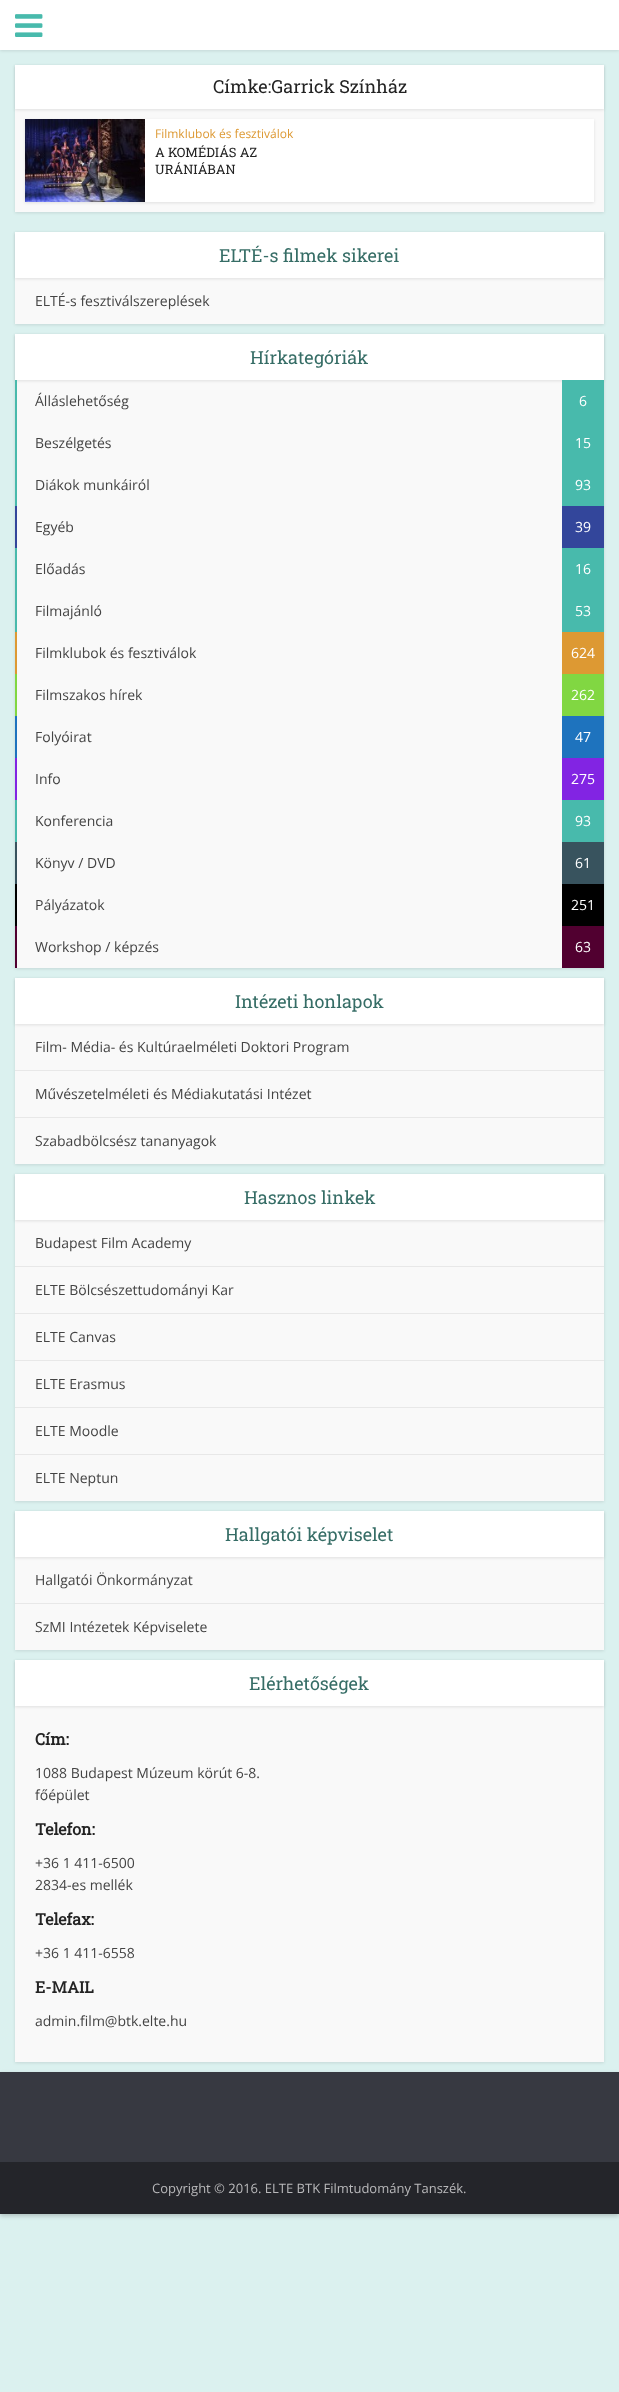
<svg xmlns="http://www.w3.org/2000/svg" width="619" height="2392">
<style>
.a{font:18px Roboto Slab;fill:#232323}
.b{font:12px Open Sans;fill:#d93}
.c{font:13px Roboto Slab;fill:#232323}
.d{font:18px Roboto Slab;fill:#366d66}
.e{font:14px Open Sans;fill:#444}
.f{font:14px Open Sans;fill:#fff}
.g{font:bold 16px Roboto Slab;fill:#232323}
.h{font:13px Open Sans;fill:#b9b9bb}
</style>
<rect width="100%" height="100%" fill="#dbf1ef"/>
<path fill="#0000001a" filter="blur(1.5px)" d="M0 1h619v50H0z"/>
<path fill="#fff" d="M0 0h619v50H0z"/>
<image href="1.png" x="15" y="14" width="28" height="23"/>
<path fill="#0000001a" filter="blur(1.5px)" d="M15 66h589v147H15z"/>
<path fill="#f9f9f9" d="M15 109h589v103H15z"/>
<path fill="#0000001a" filter="blur(1.5px)" d="M15 66h589v44H15z"/>
<path fill="#fff" d="M15 65h589v44H15z"/>
<path fill="#0000001a" filter="blur(1.5px)" d="M25 120h569v83H25z"/>
<path fill="#fff" d="M145 119h449v83H145z"/>
<image href="2.png" x="25" y="119" width="120" height="83"/>
<path fill="#0000001a" filter="blur(1.5px)" d="M15 233h589v92H15z"/>
<path fill="#f9f9f9" d="M15 278h589v46H15z"/>
<path fill="#0000001a" filter="blur(1.5px)" d="M15 233h589v46H15z"/>
<path fill="#fff" d="M15 232h589v46H15z"/>
<path fill="#0000001a" filter="blur(1.5px)" d="M15 335h589v634H15z"/>
<path fill="#f9f9f9" d="M17 380h545v588H17z"/>
<path fill="#0000001a" filter="blur(1.5px)" d="M15 335h589v46H15z"/>
<path fill="#fff" d="M15 334h589v46H15z"/>
<path fill="#48baac" d="M15 380h2v126H15z"/>
<path fill="#48baac" d="M562 380h42v126H562z"/>
<path fill="#33469b" d="M15 506h2v42H15z"/>
<path fill="#33469b" d="M562 506h42v42H562z"/>
<path fill="#48baac" d="M15 548h2v84H15z"/>
<path fill="#48baac" d="M562 548h42v84H562z"/>
<path fill="#d93" d="M15 632h2v42H15z"/>
<path fill="#d93" d="M562 632h42v42H562z"/>
<path fill="#81d742" d="M15 674h2v42H15z"/>
<path fill="#81d742" d="M562 674h42v42H562z"/>
<path fill="#1e73be" d="M15 716h2v42H15z"/>
<path fill="#1e73be" d="M562 716h42v42H562z"/>
<path fill="#8224e3" d="M15 758h2v42H15z"/>
<path fill="#8224e3" d="M562 758h42v42H562z"/>
<path fill="#48baac" d="M15 800h2v42H15z"/>
<path fill="#48baac" d="M562 800h42v42H562z"/>
<path fill="#38535e" d="M15 842h2v42H15z"/>
<path fill="#38535e" d="M562 842h42v42H562z"/>
<path fill="#000" d="M15 884h2v42H15z"/>
<path fill="#000" d="M562 884h42v42H562z"/>
<path fill="#510030" d="M15 926h2v42H15z"/>
<path fill="#510030" d="M562 926h42v42H562z"/>
<path fill="#0000001a" filter="blur(1.5px)" d="M15 979h589v186H15z"/>
<path fill="#f9f9f9" d="M15 1024h589v140H15z"/>
<path fill="#0000001a" filter="blur(1.5px)" d="M15 979h589v46H15z"/>
<path fill="#fff" d="M15 978h589v46H15z"/>
<path fill="#e8e8e8" d="M15 1070h589v1H15z"/>
<path fill="#e8e8e8" d="M15 1117h589v1H15z"/>
<path fill="#0000001a" filter="blur(1.5px)" d="M15 1175h589v327H15z"/>
<path fill="#f9f9f9" d="M15 1220h589v281H15z"/>
<path fill="#0000001a" filter="blur(1.5px)" d="M15 1175h589v46H15z"/>
<path fill="#fff" d="M15 1174h589v46H15z"/>
<path fill="#e8e8e8" d="M15 1266h589v1H15z"/>
<path fill="#e8e8e8" d="M15 1313h589v1H15z"/>
<path fill="#e8e8e8" d="M15 1360h589v1H15z"/>
<path fill="#e8e8e8" d="M15 1407h589v1H15z"/>
<path fill="#e8e8e8" d="M15 1454h589v1H15z"/>
<path fill="#0000001a" filter="blur(1.5px)" d="M15 1512h589v139H15z"/>
<path fill="#f9f9f9" d="M15 1557h589v93H15z"/>
<path fill="#0000001a" filter="blur(1.5px)" d="M15 1512h589v46H15z"/>
<path fill="#fff" d="M15 1511h589v46H15z"/>
<path fill="#e8e8e8" d="M15 1603h589v1H15z"/>
<path fill="#0000001a" filter="blur(1.5px)" d="M15 1661h589v402H15z"/>
<path fill="#f9f9f9" d="M15 1706h589v356H15z"/>
<path fill="#0000001a" filter="blur(1.5px)" d="M15 1661h589v46H15z"/>
<path fill="#fff" d="M15 1660h589v46H15z"/>
<path fill="#00000033" filter="blur(2px)" d="M0 2074h619v142H0z"/>
<path fill="#373941" d="M0 2072h619v90H0z"/>
<path fill="#24252a" d="M0 2162h619v52H0z"/>
<text class="a" x="213" y="93">Címke:Garrick Színház</text>
<text class="b" x="155" y="138">Filmklubok és fesztiválok</text>
<text class="c" x="155" y="157">A KOMÉDIÁS AZ</text>
<text class="c" x="155" y="174">URÁNIÁBAN</text>
<text class="d" x="219" y="262">ELTÉ-s filmek sikerei</text>
<text class="e" x="35" y="306">ELTÉ-s fesztiválszereplések</text>
<text class="d" x="250" y="364">Hírkategóriák</text>
<text class="e" x="35" y="406">Álláslehetőség</text>
<text class="f" x="579" y="406">6</text>
<text class="e" x="35" y="448">Beszélgetés</text>
<text class="f" x="575" y="448">15</text>
<text class="e" x="35" y="490">Diákok munkáiról</text>
<text class="f" x="575" y="490">93</text>
<text class="e" x="35" y="532">Egyéb</text>
<text class="f" x="575" y="532">39</text>
<text class="e" x="35" y="574">Előadás</text>
<text class="f" x="575" y="574">16</text>
<text class="e" x="35" y="616">Filmajánló</text>
<text class="f" x="575" y="616">53</text>
<text class="e" x="35" y="658">Filmklubok és fesztiválok</text>
<text class="f" x="571" y="658">624</text>
<text class="e" x="35" y="700">Filmszakos hírek</text>
<text class="f" x="571" y="700">262</text>
<text class="e" x="35" y="742">Folyóirat</text>
<text class="f" x="575" y="742">47</text>
<text class="e" x="35" y="784">Info</text>
<text class="f" x="571" y="784">275</text>
<text class="e" x="35" y="826">Konferencia</text>
<text class="f" x="575" y="826">93</text>
<text class="e" x="35" y="868">Könyv / DVD</text>
<text class="f" x="575" y="868">61</text>
<text class="e" x="35" y="910">Pályázatok</text>
<text class="f" x="571" y="910">251</text>
<text class="e" x="35" y="952">Workshop / képzés</text>
<text class="f" x="575" y="952">63</text>
<text class="d" x="235" y="1008">Intézeti honlapok</text>
<text class="e" x="35" y="1052">Film- Média- és Kultúraelméleti Doktori Program</text>
<text class="e" x="35" y="1099">Művészetelméleti és Médiakutatási Intézet</text>
<text class="e" x="35" y="1146">Szabadbölcsész tananyagok</text>
<text class="d" x="244" y="1204">Hasznos linkek</text>
<text class="e" x="35" y="1248">Budapest Film Academy</text>
<text class="e" x="35" y="1295">ELTE Bölcsészettudományi Kar</text>
<text class="e" x="35" y="1342">ELTE Canvas</text>
<text class="e" x="35" y="1389">ELTE Erasmus</text>
<text class="e" x="35" y="1436">ELTE Moodle</text>
<text class="e" x="35" y="1483">ELTE Neptun</text>
<text class="d" x="225" y="1541">Hallgatói képviselet</text>
<text class="e" x="35" y="1585">Hallgatói Önkormányzat</text>
<text class="e" x="35" y="1632">SzMI Intézetek Képviselete</text>
<text class="d" x="249" y="1690">Elérhetőségek</text>
<text class="g" x="35" y="1745">Cím:</text>
<text class="e" x="35" y="1778">1088 Budapest Múzeum körút 6-8.</text>
<text class="e" x="35" y="1800">főépület</text>
<text class="g" x="35" y="1835">Telefon:</text>
<text class="e" x="35" y="1868">+36 1 411-6500</text>
<text class="e" x="35" y="1890">2834-es mellék</text>
<text class="g" x="35" y="1925">Telefax:</text>
<text class="e" x="35" y="1958">+36 1 411-6558</text>
<text class="g" x="35" y="1993">E-MAIL</text>
<text class="e" x="35" y="2026">admin.film@btk.elte.hu</text>
<text class="h" x="152" y="2193">Copyright © 2016. ELTE BTK Filmtudomány Tanszék.</text>
</svg>
